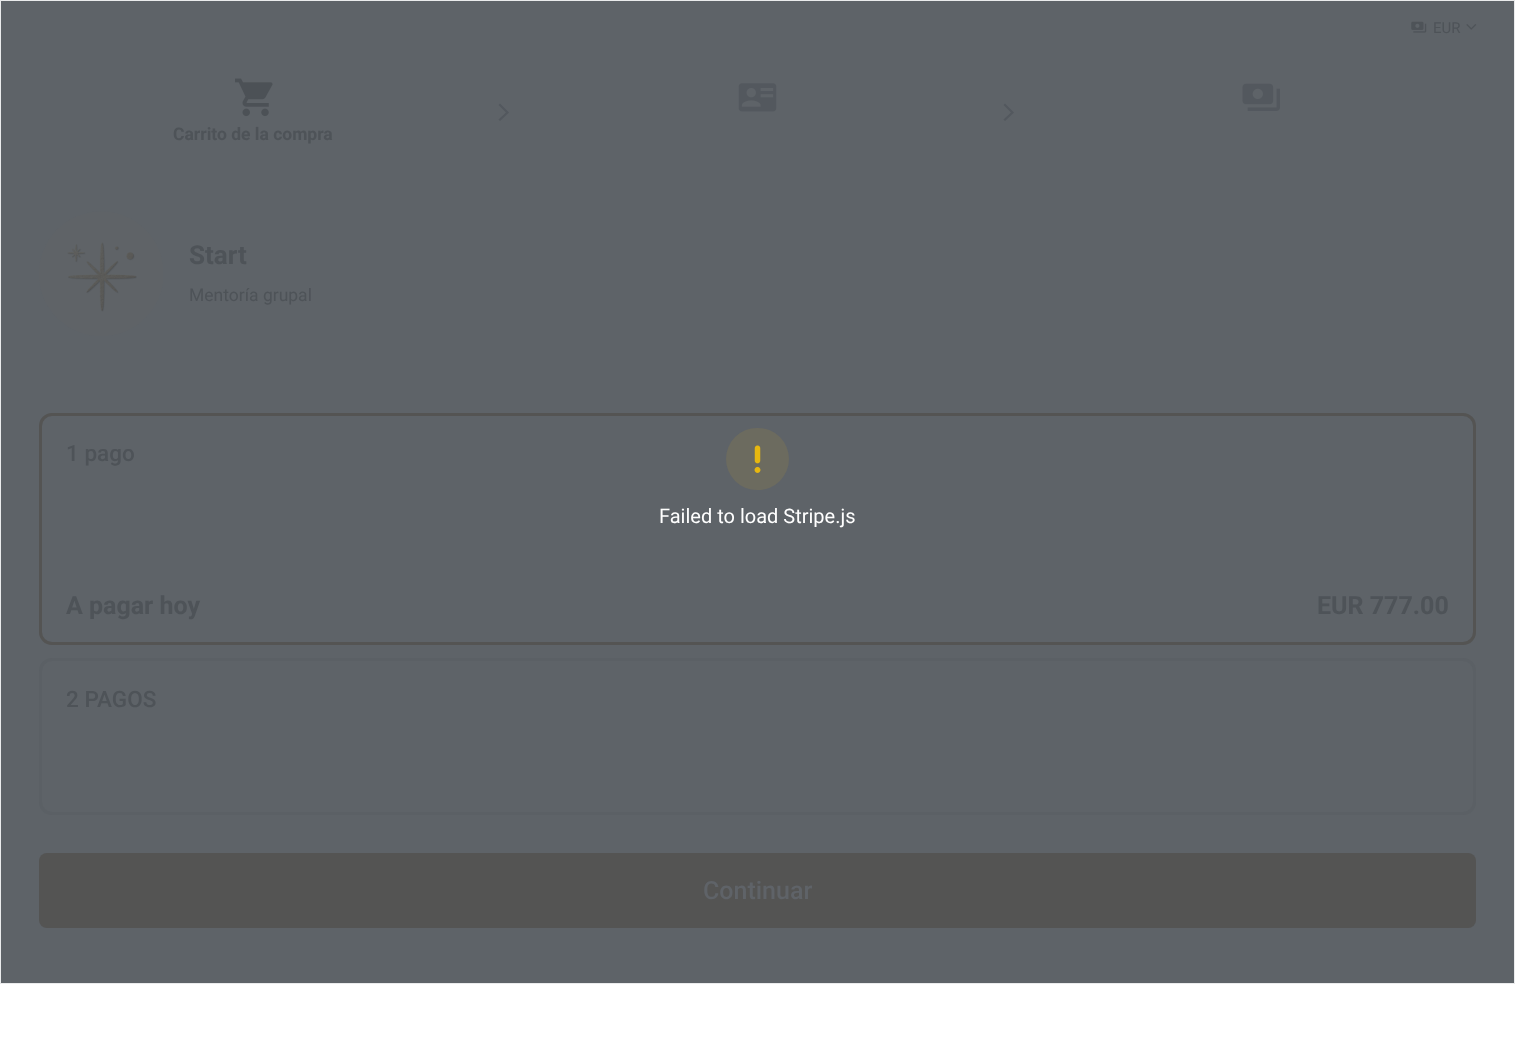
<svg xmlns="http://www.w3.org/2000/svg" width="1515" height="1045">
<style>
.a{font:15px Roboto;fill:#4e5358}
.b{font:bold 17.5px Roboto;fill:#4e5358}
.c{font:bold 26px Roboto;fill:#4e5358}
.d{font:17.5px Roboto;fill:#4e5358}
.e{font:500 22.5px Roboto;fill:#4e5358}
.f{font:bold 25px Roboto;fill:#4e5358}
.g{font:500 25px Roboto;fill:#5f6368}
.h{font:20px Roboto;fill:#fff}
</style>
<rect width="100%" height="100%" fill="#fff"/>
<path fill="#5e6368" stroke="#eaebec" d="M0.5 0.5h1514v983H0.5z"/>
<image href="1.png" x="1411" y="21" width="16" height="12"/>
<image href="2.png" x="1466" y="24" width="11" height="6"/>
<image href="3.png" x="738" y="83" width="39" height="29"/>
<path fill="#53585e" d="M1003.5 119.5l1.5 1.5l9-8.5l-9-9l-1.5 1.5l7.5 7.5z"/>
<image href="4.png" x="1242" y="83" width="38" height="28"/>
<path fill="#53585e" d="M498.5 119.5l1.5 1.5l9-8.5l-9-9l-1.5 1.5l7.5 7.5z"/>
<image href="5.png" x="235" y="78" width="38" height="39"/>
<image href="6.png" x="39" y="211" width="124" height="125"/>
<rect fill="none" stroke="#545453" stroke-width="3" x="40.5" y="414.5" width="1434" height="229" rx="11.5"/>
<rect fill="none" stroke="#5b6065" stroke-width="3" x="40.5" y="659.5" width="1434" height="154" rx="11.5"/>
<rect fill="#545453" x="39" y="853" width="1437" height="75" rx="8"/>
<rect fill="#6c6b5f" x="726" y="428" width="63" height="62" rx="31"/>
<image href="7.png" x="754" y="445" width="7" height="28"/>
<text class="a" x="1433" y="33">EUR</text>
<text class="b" x="173" y="140">Carrito de la compra</text>
<text class="c" x="189" y="264">Start</text>
<text class="d" x="189" y="301">Mentoría grupal</text>
<text class="e" x="66" y="461">1 pago</text>
<text class="f" x="66" y="614">A pagar hoy</text>
<text class="f" x="1317" y="614">EUR 777.00</text>
<text class="e" x="66" y="707">2 PAGOS</text>
<text class="g" x="703" y="899">Continuar</text>
<text class="h" x="659" y="523">Failed to load Stripe.js</text>
</svg>
